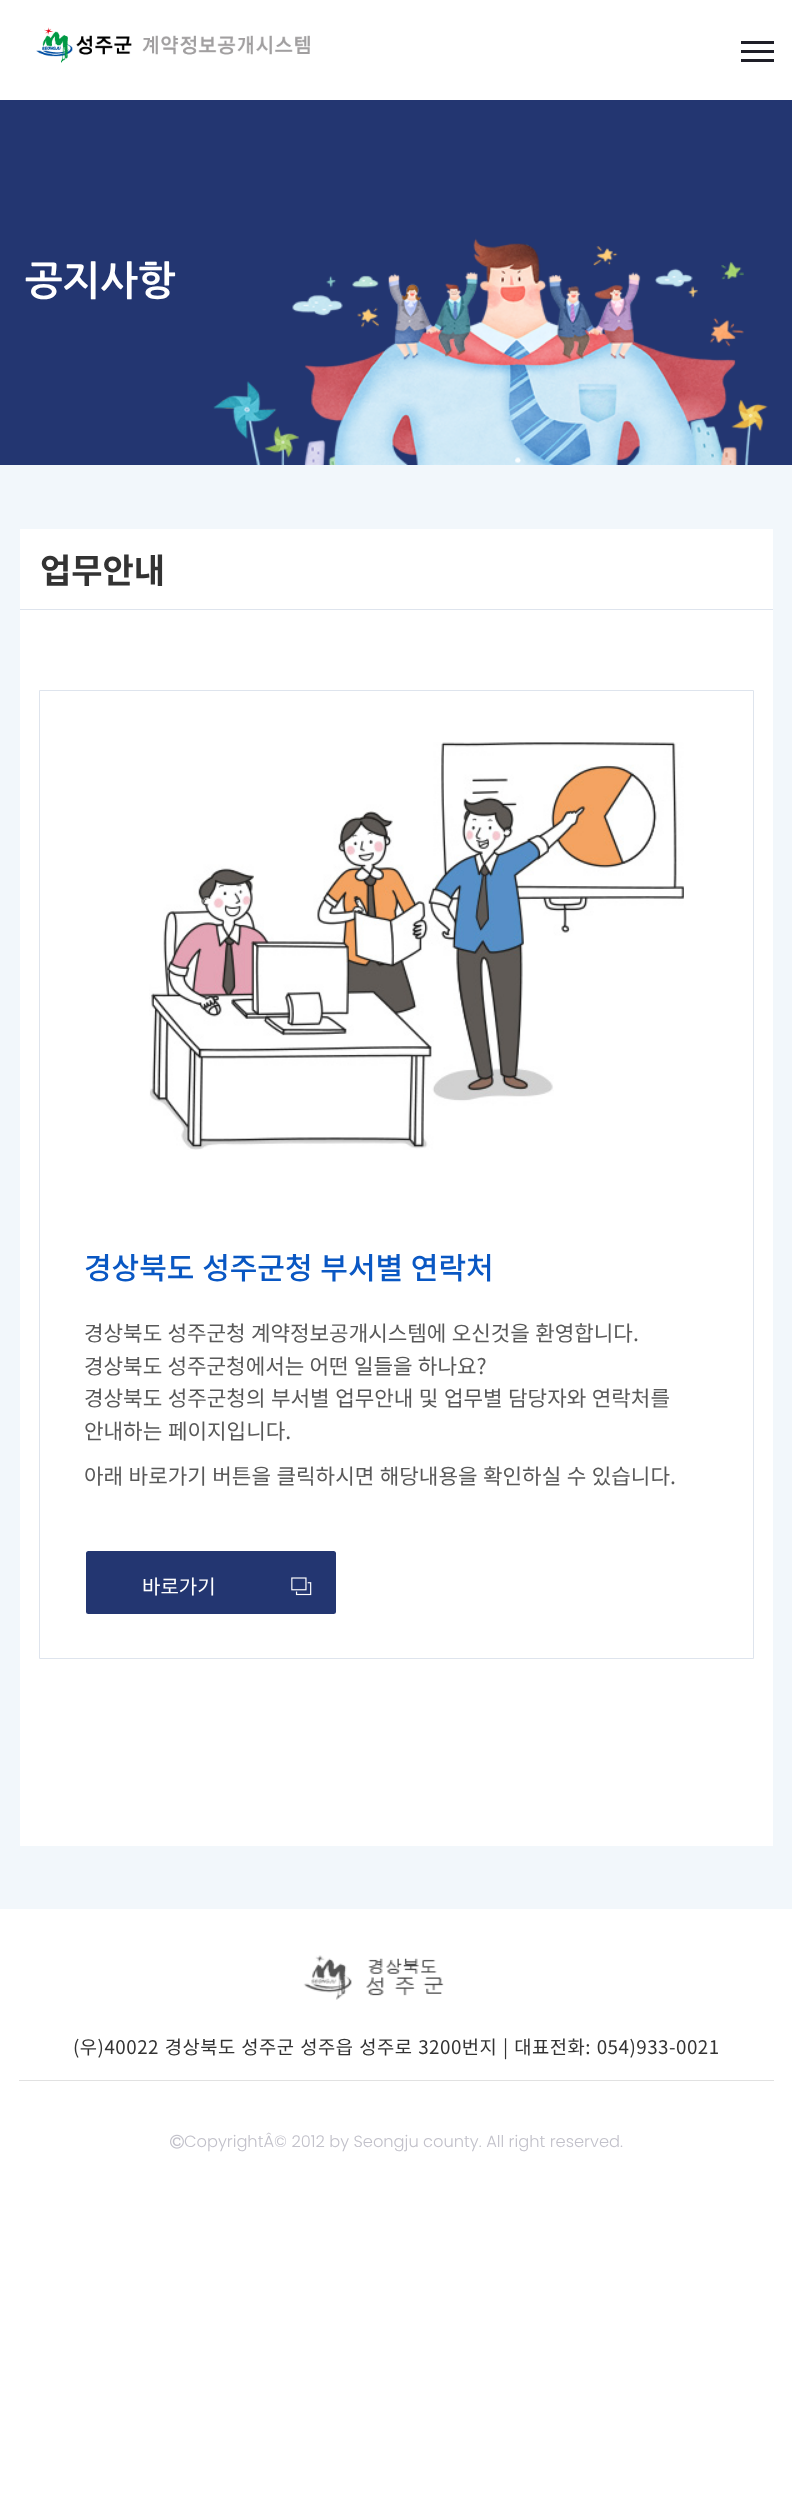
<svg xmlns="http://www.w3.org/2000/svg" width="792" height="2515">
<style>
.a{font:bold 40px NanumGothic;fill:#fff}
.b{font:bold 34px Noto Sans KR;fill:#333}
.c{font:500 30px Noto Sans KR;fill:#0957c3}
.d{font:21.25px Noto Sans KR;fill:#595959}
.e{font:20px Noto Sans KR;fill:#fff}
.f{font:18.75px Noto Sans KR;letter-spacing:0.5px;fill:#333}
.g{font:300 16.25px Poppins;fill:#c2c1ca}
</style>
<rect width="100%" height="100%" fill="#fff"/>
<image href="1.png" x="36" y="27" width="274" height="36"/>
<path fill="#1e1e27" d="M741 41h33v3H741z"/>
<path fill="#1e1e27" d="M741 50h33v3H741z"/>
<path fill="#1e1e27" d="M741 59h33v3H741z"/>
<path fill="#233671" d="M0 100h792v365H0z"/>
<image href="2.png" x="213" y="238" width="555" height="227"/>
<path fill="#f2f7fb" d="M0 465h792v1444H0z"/>
<path fill="#fff" d="M20 529h753v1317H20z"/>
<path fill="#dee4ed" d="M20 609h753v1H20z"/>
<path fill="none" stroke="#dee4ed" d="M39.5 690.5h714v968H39.5z"/>
<image href="3.png" x="149" y="742" width="535" height="408"/>
<rect fill="#233671" stroke="#233671" stroke-width="3" x="87.5" y="1552.5" width="247" height="60" rx="1"/>
<image href="4.png" x="291" y="1577" width="21" height="19"/>
<image href="5.png" x="303" y="1955" width="141" height="45"/>
<path fill="#e1e1e1" d="M19 2080h755v1H19z"/>
<image href="6.png" x="170" y="2134" width="14" height="15"/>
<text class="a" x="25" y="295">공지사항</text>
<text class="b" x="40" y="583">업무안내</text>
<text class="c" x="84" y="1279" word-spacing="1">경상북도 성주군청 부서별 연락처</text>
<text class="d" x="84" y="1341" word-spacing="0.5">경상북도 성주군청 계약정보공개시스템에 오신것을 환영합니다.</text>
<text class="d" x="84" y="1374" word-spacing="0.5">경상북도 성주군청에서는 어떤 일들을 하나요?</text>
<text class="d" x="84" y="1406" word-spacing="0.75">경상북도 성주군청의 부서별 업무안내 및 업무별 담당자와 연락처를</text>
<text class="d" x="84" y="1439" word-spacing="1">안내하는 페이지입니다.</text>
<text class="d" x="84" y="1484" word-spacing="0.75">아래 바로가기 버튼을 클릭하시면 해당내용을 확인하실 수 있습니다.</text>
<text class="e" x="142" y="1594">바로가기</text>
<text class="f" x="73" y="2054" word-spacing="1">(우)40022 경상북도 성주군 성주읍 성주로 3200번지 | 대표전화: 054)933-0021</text>
<text class="g" x="184" y="2147">CopyrightÂ© 2012 by Seongju county. All right reserved.</text>
</svg>
